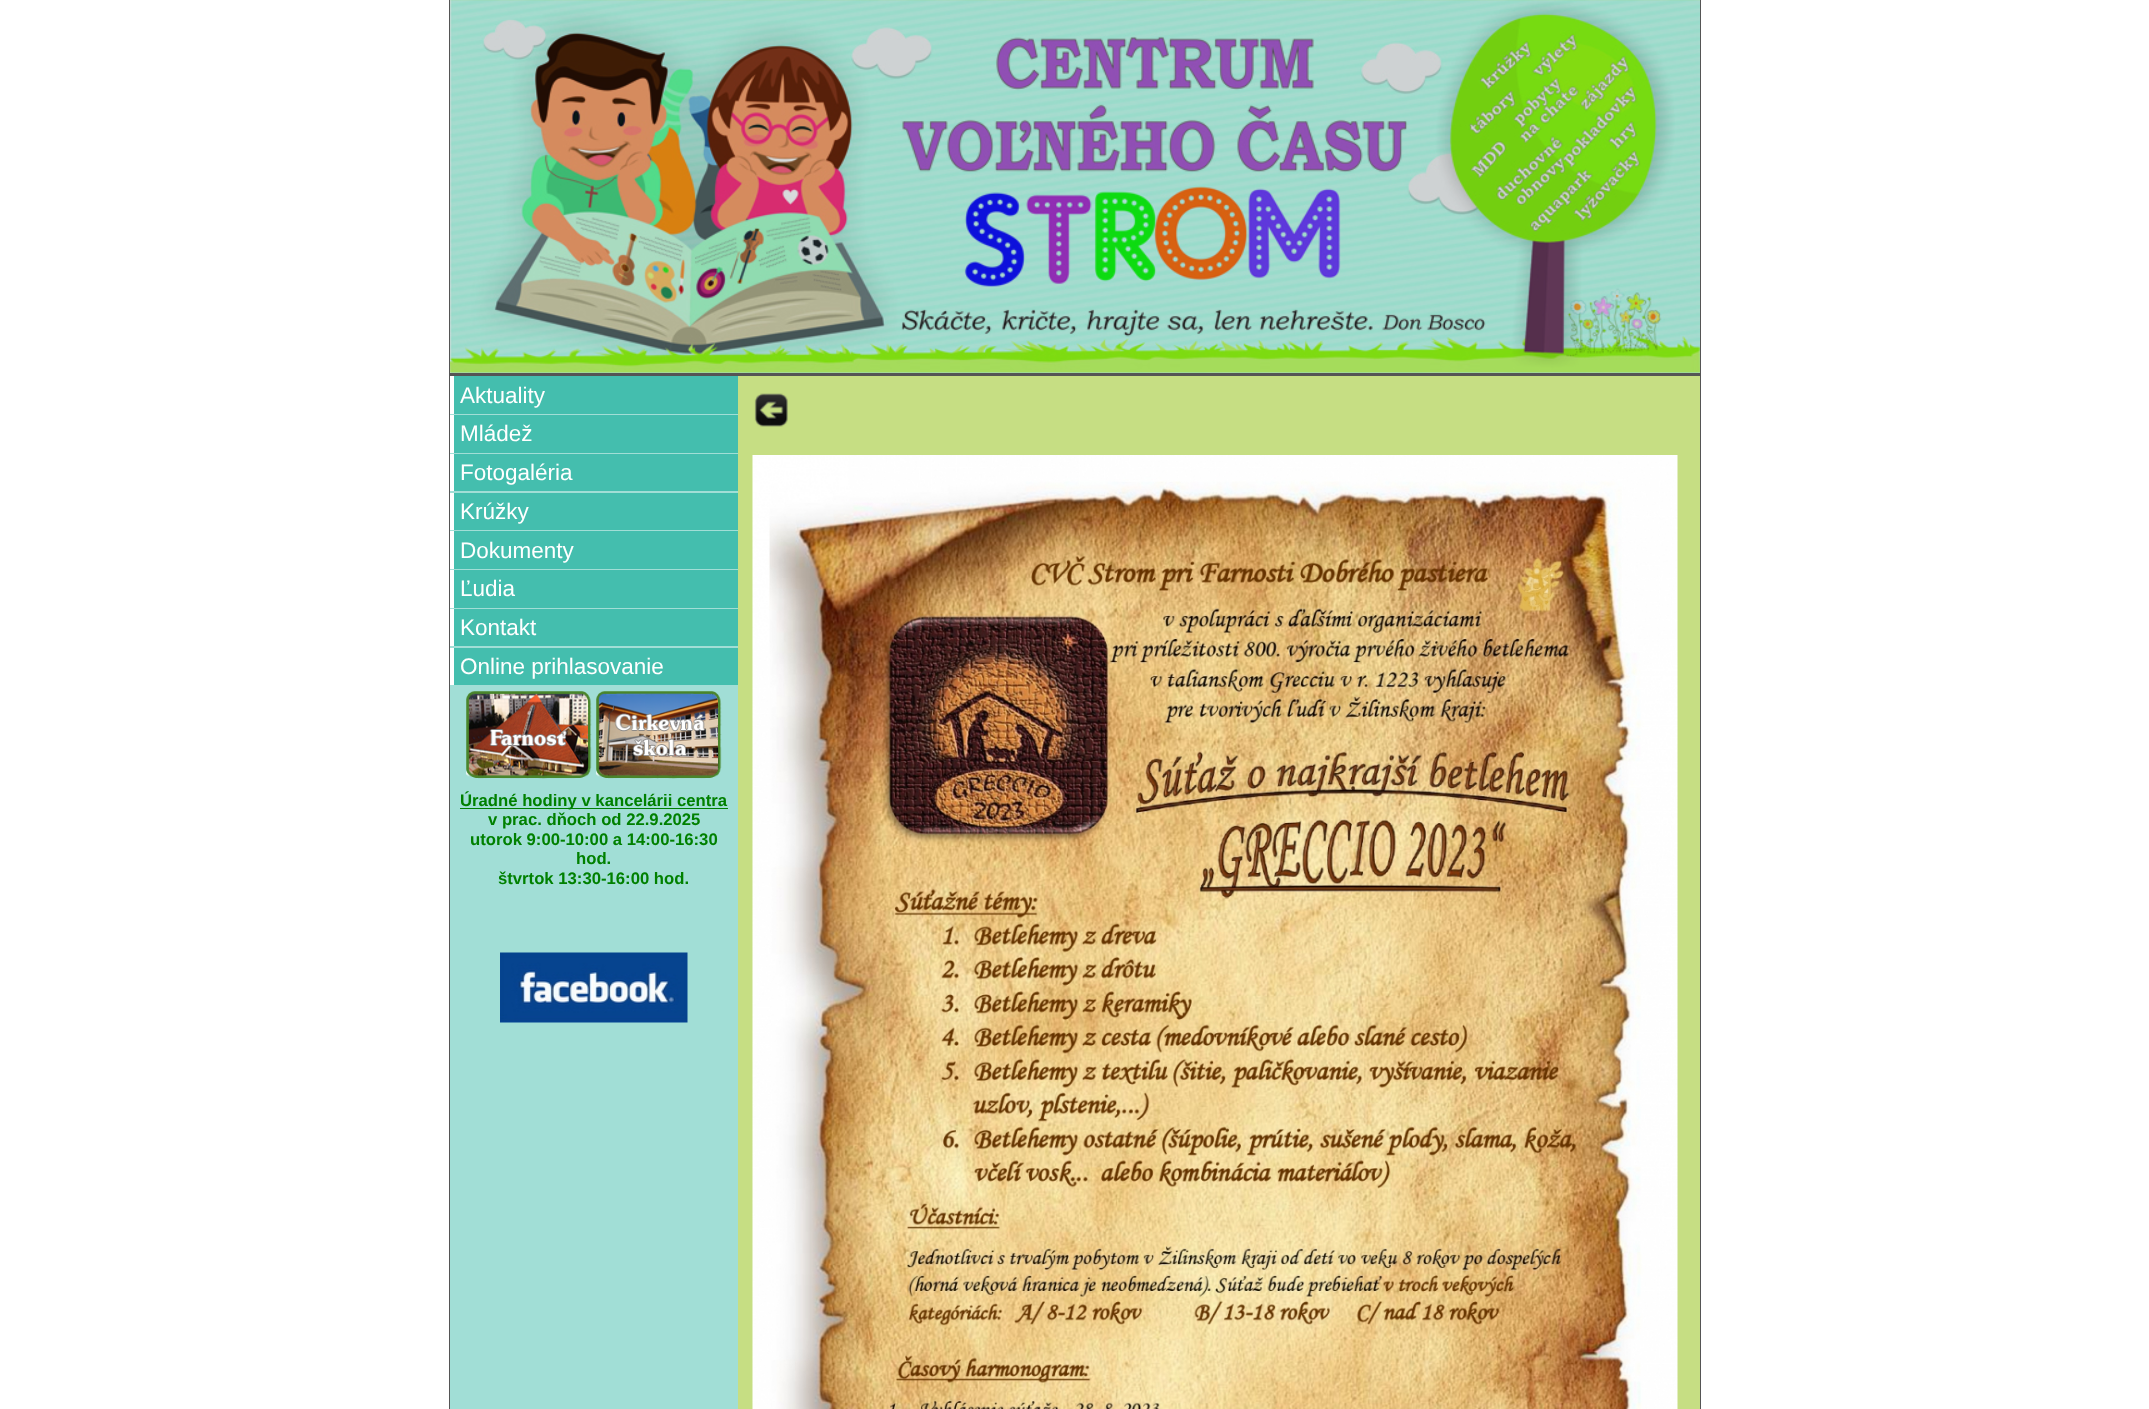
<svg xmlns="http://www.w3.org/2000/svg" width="2149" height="1409">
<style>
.a{font:22.5px Liberation Sans;fill:#fff}
.b{font:bold 16.7px Liberation Sans;fill:#008000}
</style>
<rect width="100%" height="100%" fill="#fff"/>
<path fill="#a1ded6" d="M450 414h288v995H450z"/>
<path fill="#555" d="M1700 0h1v1409H1700z"/>
<path fill="#555" d="M449 0h1v1409H449z"/>
<image href="1.png" x="450" y="0" width="1250" height="373"/>
<path fill="#555" d="M450 373h1250v3H450z"/>
<path fill="#44beae" d="M454 376h284v38H454z"/>
<path fill="#44beae" d="M454 415h284v38H454z"/>
<path fill="#fff" d="M450 415h4v38H450z"/>
<path fill="#44beae" d="M454 454h284v37H454z"/>
<path fill="#fff" d="M450 454h4v37H450z"/>
<path fill="#44beae" d="M454 493h284v37H454z"/>
<path fill="#fff" d="M450 493h4v37H450z"/>
<path fill="#44beae" d="M454 531h284v38H454z"/>
<path fill="#fff" d="M450 531h4v38H450z"/>
<path fill="#44beae" d="M454 570h284v38H454z"/>
<path fill="#fff" d="M450 570h4v38H450z"/>
<path fill="#44beae" d="M454 609h284v37H454z"/>
<path fill="#fff" d="M450 609h4v37H450z"/>
<path fill="#44beae" d="M454 648h284v37H454z"/>
<path fill="#fff" d="M450 648h4v37H450z"/>
<path fill="#c6de83" d="M738 376h962v1033H738z"/>
<image href="2.png" x="754" y="393" width="34" height="34"/>
<image href="3.png" x="752" y="455" width="926" height="954"/>
<image href="4.png" x="466" y="691" width="126" height="88"/>
<image href="5.png" x="596" y="691" width="126" height="88"/>
<path fill="#008000" d="M460 808h268v1H460z"/>
<image href="6.png" x="500" y="952" width="188" height="71"/>
<text class="a" x="460" y="403">Aktuality</text>
<text class="a" x="460" y="441">Mládež</text>
<text class="a" x="460" y="480">Fotogaléria</text>
<text class="a" x="460" y="519">Krúžky</text>
<text class="a" x="460" y="558">Dokumenty</text>
<text class="a" x="460" y="596">Ľudia</text>
<text class="a" x="460" y="635">Kontakt</text>
<text class="a" x="460" y="674">Online prihlasovanie</text>
<text class="b" x="460" y="806">Úradné hodiny v kancelárii centra</text>
<text class="b" x="488" y="825">v prac. dňoch od 22.9.2025</text>
<text class="b" x="470" y="845">utorok 9:00-10:00 a 14:00-16:30</text>
<text class="b" x="576" y="864">hod.</text>
<text class="b" x="498" y="884">štvrtok 13:30-16:00 hod.</text>
</svg>
